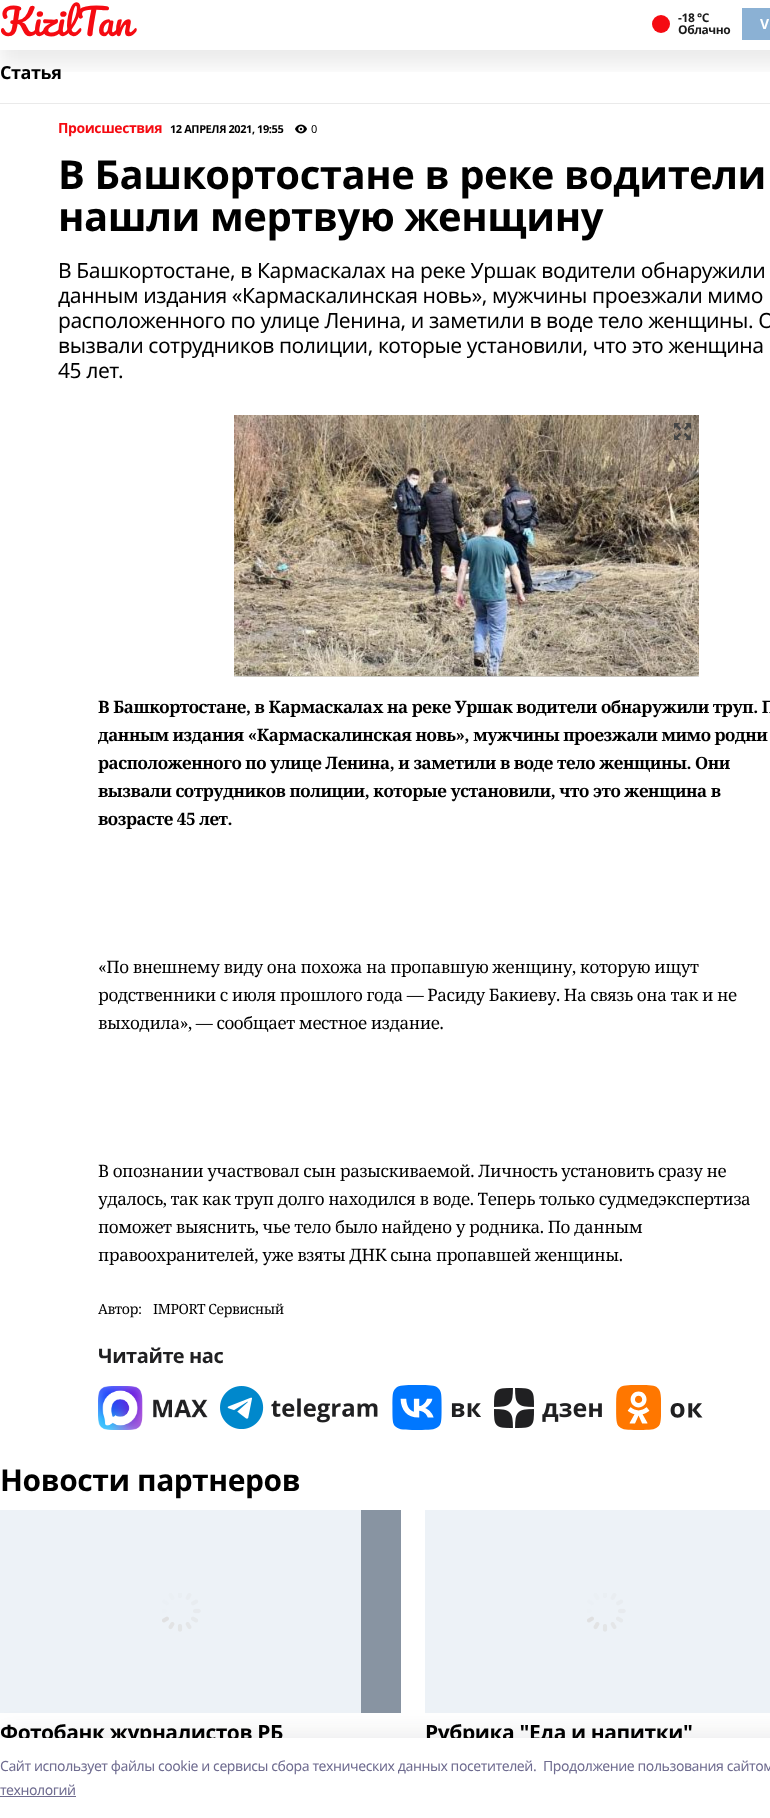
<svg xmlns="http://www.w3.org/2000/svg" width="770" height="1818">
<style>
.a{font:36px Pacifico;letter-spacing:-0.42px;fill:#f50b12}
.b{font:bold 12px Noto Sans;letter-spacing:-0.42px;fill:#1a1a1a}
.c{font:bold 14px Noto Sans;letter-spacing:-0.42px;fill:#fff}
.d{font:bold 18px Noto Sans;letter-spacing:-0.42px;fill:#000}
.e{font:bold 14px Noto Sans;letter-spacing:-0.42px;fill:#f50b12}
.f{font:bold 11px Noto Sans;letter-spacing:-0.42px;fill:#000}
.g{font:11px Noto Sans;letter-spacing:-0.42px;fill:#000}
.h{font:bold 40px Noto Sans;letter-spacing:-0.42px;fill:#000}
.i{font:21px Noto Sans;letter-spacing:-0.42px;fill:#000}
.j{font:bold 17px Noto Serif;letter-spacing:-0.42px;fill:#000}
.k{font:17px Noto Serif;letter-spacing:-0.42px;fill:#000}
.l{font:14px Noto Serif;letter-spacing:-0.42px;fill:#000}
.m{font:bold 20px Noto Sans;letter-spacing:-0.42px;fill:#202022}
.n{font:bold 30px Noto Sans;letter-spacing:-0.42px;fill:#000}
.o{font:bold 21px Noto Sans;letter-spacing:-0.42px;fill:#000}
.p{font:14px Noto Sans;letter-spacing:-0.42px;fill:#6f6c90}
</style>
<defs>
<clipPath id="clip1"><path d="M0 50h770v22H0z"/></clipPath>
</defs>
<rect width="100%" height="100%" fill="#fff"/>
<g clip-path="url(#clip1)">
<path fill="#00000014" filter="blur(10px)" d="M0 15h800v50H0z"/>
</g>
<circle fill="#f50b12" cx="661" cy="24" r="9"/>
<path fill="#8bb1d4" d="M742 8h28v32H742z"/>
<path fill="#eaeaea" d="M0 103h770v1H0z"/>
<image href="1.png" x="295" y="124" width="12" height="10"/>
<path fill="#edf2f7" d="M234 676h465v1H234z"/>
<image href="2.png" x="234" y="415" width="465" height="261"/>
<image href="3.png" x="234" y="676" width="465" height="1"/>
<image href="4.png" x="674" y="423" width="17" height="17"/>
<image href="5.png" x="98" y="1386" width="110" height="44"/>
<image href="6.png" x="220" y="1386" width="158" height="43"/>
<image href="7.png" x="392" y="1385" width="89" height="45"/>
<image href="8.png" x="494" y="1388" width="108" height="40"/>
<image href="9.png" x="616" y="1385" width="87" height="45"/>
<path fill="#8894a2" d="M361 1510h40v203H361z"/>
<path fill="#edf2f7" d="M0 1510h361v203H0z"/>
<image href="10.png" x="162" y="1593" width="39" height="39"/>
<path fill="#edf2f7" d="M425 1510h345v203H425z"/>
<image href="10.png" x="587" y="1593" width="39" height="39"/>
<path fill="#14142b14" filter="blur(11.5px)" d="M0 1732h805v80H0z"/>
<text class="a" x="0" y="36">KizilTan</text>
<text class="b" x="678" y="22">-18 °С</text>
<text class="b" x="678" y="34">Облачно</text>
<text class="c" x="760" y="29">V</text>
<text class="d" x="0" y="79">Статья</text>
<text class="e" x="58" y="133">Происшествия</text>
<text class="f" x="170" y="133">12 АПРЕЛЯ 2021, 19:55</text>
<text class="g" x="311" y="133">0</text>
<text class="h" x="58" y="189">В Башкортостане в реке водители</text>
<text class="h" x="58" y="231">нашли мертвую женщину</text>
<text class="i" x="58" y="278">В Башкортостане, в Кармаскалах на реке Уршак водители обнаружили</text>
<text class="i" x="58" y="303">данным издания «Кармаскалинская новь», мужчины проезжали мимо</text>
<text class="i" x="58" y="328">расположенного по улице Ленина, и заметили в воде тело женщины. О</text>
<text class="i" x="58" y="353">вызвали сотрудников полиции, которые установили, что это женщина</text>
<text class="i" x="58" y="378">45 лет.</text>
<text class="j" x="98" y="713">В Башкортостане, в Кармаскалах на реке Уршак водители обнаружили труп. П</text>
<text class="j" x="98" y="741">данным издания «Кармаскалинская новь», мужчины проезжали мимо родни</text>
<text class="j" x="98" y="769">расположенного по улице Ленина, и заметили в воде тело женщины. Они</text>
<text class="j" x="98" y="797">вызвали сотрудников полиции, которые установили, что это женщина в</text>
<text class="j" x="98" y="825">возрасте 45 лет.</text>
<text class="k" x="98" y="973">«По внешнему виду она похожа на пропавшую женщину, которую ищут</text>
<text class="k" x="98" y="1001">родственники с июля прошлого года — Расиду Бакиеву. На связь она так и не</text>
<text class="k" x="98" y="1029">выходила», — сообщает местное издание.</text>
<text class="k" x="98" y="1177">В опознании участвовал сын разыскиваемой. Личность установить сразу не</text>
<text class="k" x="98" y="1205">удалось, так как труп долго находился в воде. Теперь только судмедэкспертиза</text>
<text class="k" x="98" y="1233">поможет выяснить, чье тело было найдено у родника. По данным</text>
<text class="k" x="98" y="1261">правоохранителей, уже взяты ДНК сына пропавшей женщины.</text>
<text class="l" x="98" y="1314">Автор:</text>
<text class="l" x="153" y="1314">IMPORT Сервисный</text>
<text class="m" x="98" y="1363">Читайте нас</text>
<text class="n" x="0" y="1491">Новости партнеров</text>
<text class="o" x="0" y="1740">Фотобанк журналистов РБ</text>
<text class="o" x="425" y="1740">Рубрика "Еда и напитки"</text>
<path fill="#fff" d="M0 1738h770v80H0z"/>
<text class="p" x="0" y="1771">Cайт использует файлы cookie и сервисы сбора технических данных посетителей.</text>
<text class="p" x="543" y="1771">Продолжение пользования сайтом</text>
<text class="p" x="0" y="1795">технологий</text>
<path fill="#6f6c90" d="M0 1796h76v1H0z"/>
</svg>
